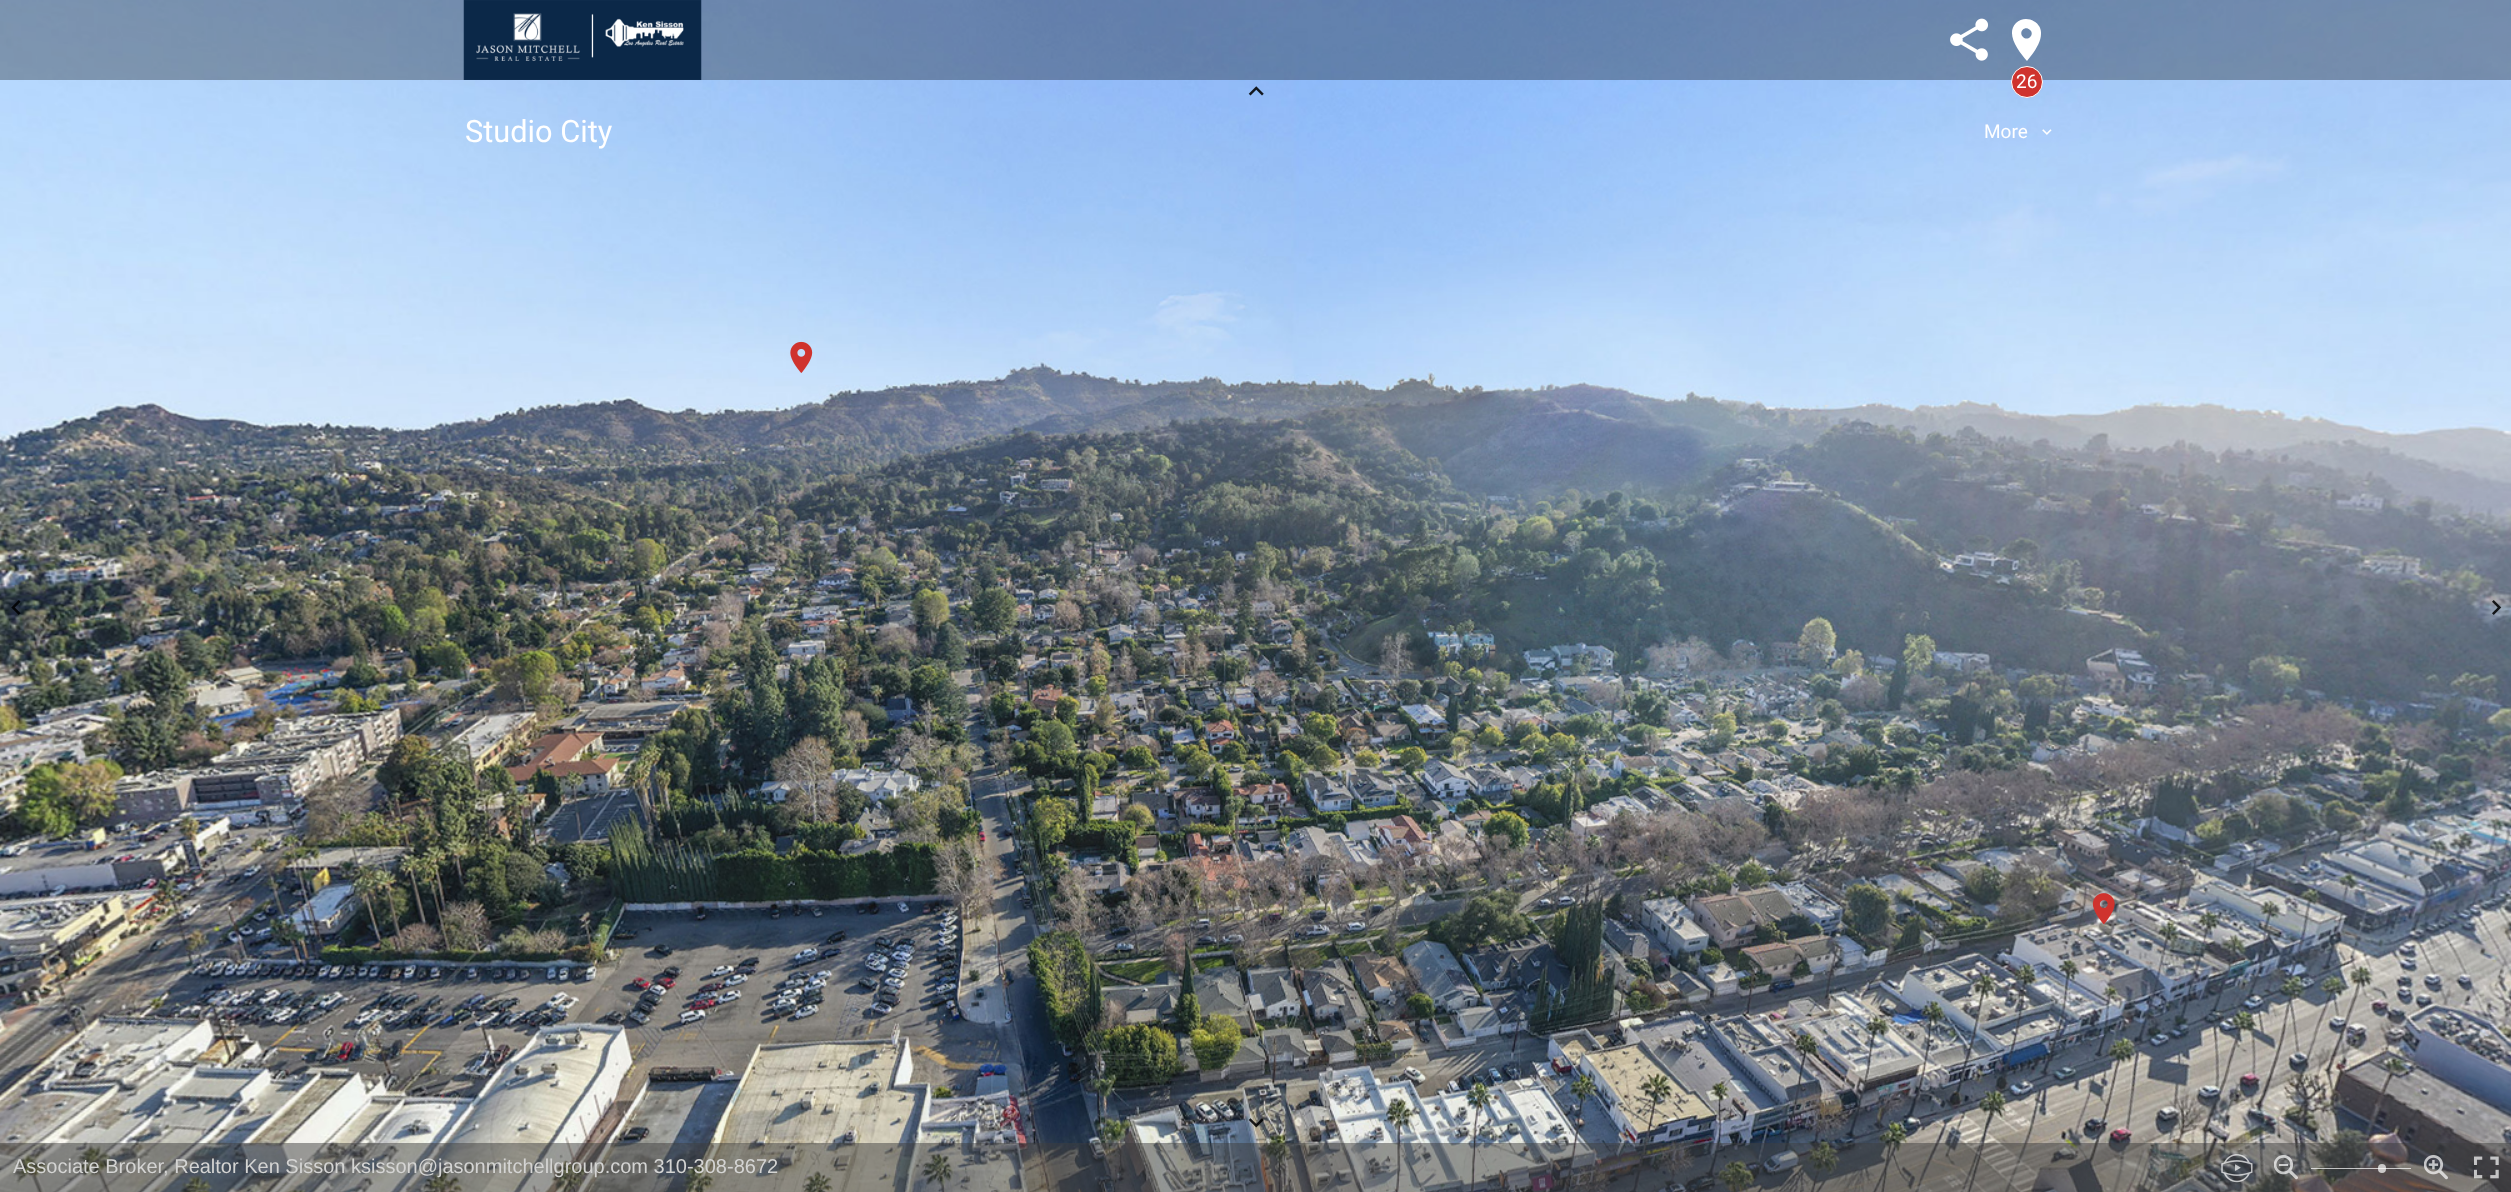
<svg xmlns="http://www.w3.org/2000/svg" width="2511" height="1192">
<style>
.a{font:19px Roboto;fill:#fff}
.b{font:30.75px Roboto;fill:#fff}
.c{font:20px Liberation Sans;fill:#d4d4d3}
</style>
<rect width="100%" height="100%" fill="#fff"/>
<image href="8.png" x="0" y="0" width="2511" height="1192"/>
<path fill="#0000004d" d="M0 0h2511v80H0z"/>
<image href="1.png" x="463" y="0" width="239" height="80"/>
<image href="2.png" x="1950" y="18" width="38" height="43"/>
<path fill="#fff" d="M2023 37c5 5 12-3 7-7c-5-5-12 2-7 7zm-7-14c9-9 26-2 25 11c0 9-8 20-14 27c-8-9-22-27-11-38z"/>
<circle fill="#cf332e" stroke="#fff" cx="2027" cy="82" r="15.5"/>
<image href="3.png" x="1248" y="86" width="16" height="10"/>
<image href="4.png" x="2042" y="129" width="10" height="6"/>
<image href="5.png" x="11" y="600" width="10" height="15"/>
<image href="6.png" x="2492" y="600" width="10" height="15"/>
<image href="7.png" x="1248" y="1118" width="16" height="10"/>
<image href="9.png" x="790" y="341" width="23" height="32"/>
<image href="10.png" x="2092" y="893" width="23" height="32"/>
<path fill="#3d3d3d80" d="M0 1143h2511v49H0z"/>
<image href="11.png" x="2221" y="1154" width="32" height="29"/>
<image href="12.png" x="2274" y="1155" width="24" height="25"/>
<path fill="#ffffffb3" d="M2311 1168h100v1H2311z"/>
<rect fill="#ffffffb3" x="2378" y="1164" width="8" height="9" rx="4"/>
<image href="13.png" x="2424" y="1155" width="24" height="25"/>
<image href="14.png" x="2474" y="1156" width="25" height="23"/>
<text class="a" x="2016" y="88">26</text>
<text class="b" x="465" y="142">Studio City</text>
<text class="a" x="1984" y="138">More</text>
<text class="c" x="13" y="1173">Associate Broker, Realtor Ken Sisson ksisson@jasonmitchellgroup.com 310-308-8672</text>
</svg>
